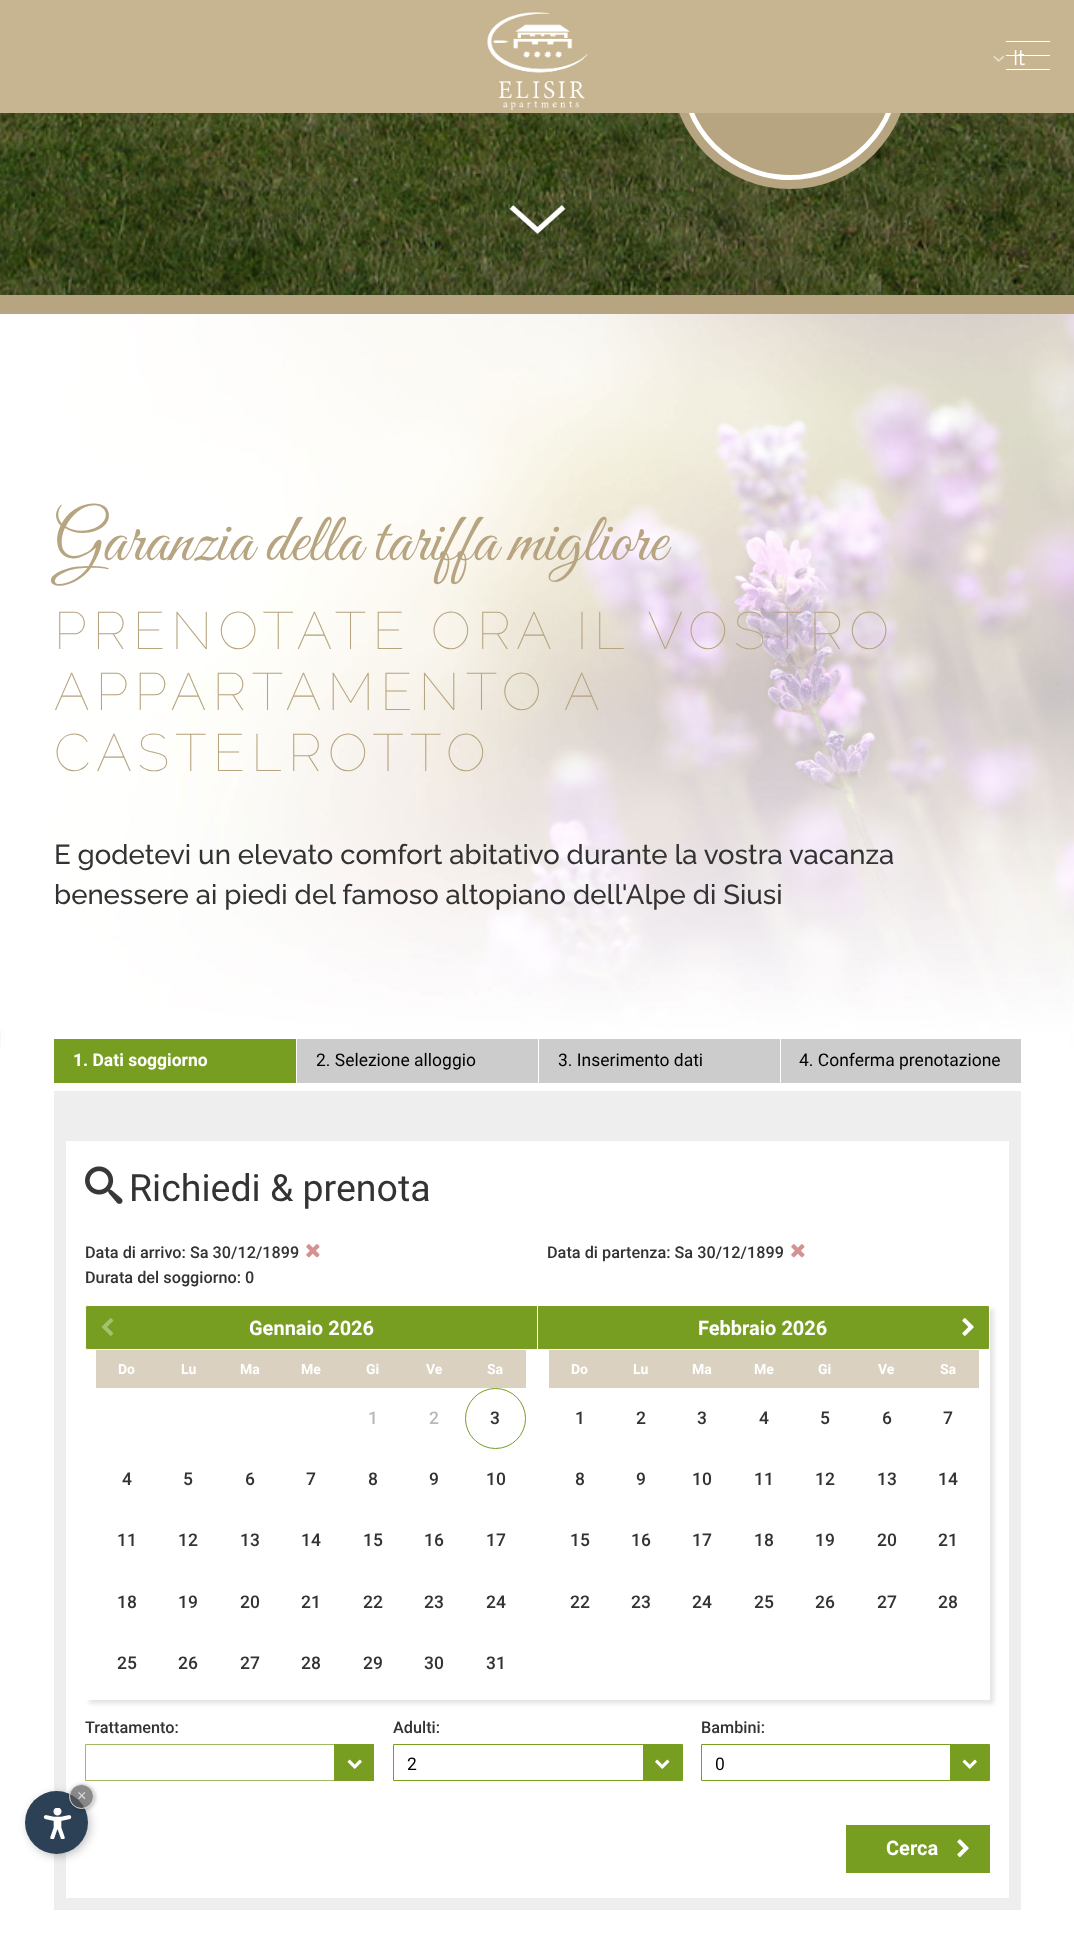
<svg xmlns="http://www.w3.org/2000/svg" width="1074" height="1953">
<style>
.a{font:21px Raleway;fill:#fff}
.b{font:68.75px Great Vibes;fill:#b7a480}
.c{font:100 52.5px Raleway;letter-spacing:6.25px;fill:#b7a480}
.d{font:500 27.5px Raleway;fill:#333}
.e{font:bold 17.5px Roboto;fill:#fff}
.f{font:17.5px Roboto;fill:#000}
.g{font:37.5px Roboto;fill:#333}
.h{font:500 16.25px Roboto;fill:#333}
.i{font:bold 20px Roboto;fill:#fff}
.j{font:bold 14px Roboto;fill:#fff}
.k{font:500 17.5px Roboto;fill:#b9b9b9}
.l{font:500 17.5px Roboto;fill:#333}
.m{font:16.25px Liberation Sans;fill:#dadada}
</style>
<defs>
<clipPath id="clip1"><path d="M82 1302h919v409h-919zm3 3h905v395h-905z" clip-rule="evenodd"/></clipPath>
<clipPath id="clip2"><path d="M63 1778h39v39h-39zm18.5 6c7 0 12.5 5.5 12.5 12.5c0 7-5.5 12.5-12.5 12.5c-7 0-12.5-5.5-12.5-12.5c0-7 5.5-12.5 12.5-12.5z" clip-rule="evenodd"/></clipPath>
</defs>
<rect width="100%" height="100%" fill="#fff"/>
<image href="4.png" x="0" y="113" width="1074" height="182"/>
<image href="5.png" x="0" y="113" width="1074" height="182"/>
<circle fill="#b7a480" cx="790" cy="70" r="119"/>
<circle fill="none" stroke="#fff" stroke-width="5" cx="790" cy="70" r="107.5"/>
<image href="1.png" x="509" y="205" width="57" height="30"/>
<path fill="#b7a480" d="M0 295h1074v19H0z"/>
<path fill="#c7b490" d="M0 0h1074v113H0z"/>
<image href="2.png" x="487" y="12" width="101" height="98"/>
<path fill="#fff" d="M1006 41h44v1H1006z"/>
<path fill="#fff" d="M1006 55h44v1H1006z"/>
<path fill="#fff" d="M1006 69h44v1H1006z"/>
<image href="3.png" x="993" y="55" width="11" height="7"/>
<image href="6.png" x="0" y="314" width="1074" height="735"/>
<path fill="#779e20" d="M54 1039h242v44H54z"/>
<path fill="#ccc" d="M297 1039h241v44H297z"/>
<path fill="#ccc" d="M539 1039h241v44H539z"/>
<path fill="#ccc" d="M781 1039h240v44H781z"/>
<path fill="#eee" d="M54 1091h967v819H54z"/>
<path fill="#fff" d="M66 1141h943v757H66z"/>
<image href="7.png" x="85" y="1166" width="38" height="38"/>
<image href="8.png" x="306" y="1244" width="14" height="14"/>
<image href="8.png" x="791" y="1244" width="14" height="14"/>
<g clip-path="url(#clip1)">
<path fill="#0000001a" filter="blur(2px)" d="M89 1309h905v395H89z"/>
</g>
<path fill="#779e20" stroke="#fff" d="M87.5 1305.5h450v44h-450c-1 0-2-1-2-2v-40c0-1 1-2 2-2z"/>
<image href="9.png" x="101" y="1318" width="13" height="18"/>
<path fill="#dad1c0" d="M96 1350h430v38H96z"/>
<circle fill="none" stroke="#779e20" cx="495.5" cy="1418.5" r="30"/>
<path fill="#779e20" d="M538 1306h450c.5 0 1 .5 1 1v41c0 .5-.5 1-1 1h-450z"/>
<image href="10.png" x="962" y="1318" width="12" height="18"/>
<path fill="#dad1c0" d="M549 1350h430v38H549z"/>
<path fill="none" stroke="#a0bb63" d="M85.5 1744.5h288v36H85.5z"/>
<path fill="#779e20" d="M334 1744h40v37H334z"/>
<image href="11.png" x="347" y="1759" width="15" height="10"/>
<path fill="none" stroke="#779e20" d="M393.5 1744.5h289v36H393.5z"/>
<path fill="#779e20" d="M643 1745h39v35H643z"/>
<image href="12.png" x="655" y="1759" width="15" height="10"/>
<path fill="none" stroke="#779e20" d="M701.5 1744.5h288v36H701.5z"/>
<path fill="#779e20" d="M950 1745h39v35H950z"/>
<image href="11.png" x="962" y="1759" width="15" height="10"/>
<path fill="#779e20" d="M846 1825h144v48H846z"/>
<image href="13.png" x="957" y="1839" width="12" height="19"/>
<rect fill="#00000040" filter="blur(5px)" x="28" y="1794" width="62" height="62" rx="31"/>
<circle fill="#2d4156" cx="56.5" cy="1822.5" r="31.5"/>
<image href="14.png" x="43" y="1808" width="29" height="31"/>
<g clip-path="url(#clip2)">
<rect fill="#0000004d" filter="blur(2px)" x="70" y="1785" width="25" height="25" rx="12.5"/>
</g>
<circle fill="#5a5a5ab3" stroke="#dadada" cx="81.5" cy="1796.5" r="12"/>
<text class="a" x="1013" y="65">It</text>
<text class="b" x="54" y="560">Garanzia della tariffa migliore</text>
<text class="c" x="54" y="649">PRENOTATE ORA IL VOSTRO</text>
<text class="c" x="54" y="710" word-spacing="-2">APPARTAMENTO A</text>
<text class="c" x="54" y="771">CASTELROTTO</text>
<text class="d" x="54" y="864">E godetevi un elevato comfort abitativo durante la vostra vacanza</text>
<text class="d" x="54" y="904">benessere ai piedi del famoso altopiano dell'Alpe di Siusi</text>
<text class="e" x="73" y="1066">1. Dati soggiorno</text>
<text class="f" x="316" y="1066">2. Selezione alloggio</text>
<text class="f" x="558" y="1066">3. Inserimento dati</text>
<text class="f" x="799" y="1066">4. Conferma prenotazione</text>
<text class="g" x="129" y="1201">Richiedi &amp; prenota</text>
<text class="h" x="85" y="1258">Data di arrivo: Sa 30/12/1899</text>
<text class="h" x="547" y="1258">Data di partenza: Sa 30/12/1899</text>
<text class="h" x="85" y="1283">Durata del soggiorno: 0</text>
<text class="i" x="249" y="1335">Gennaio 2026</text>
<text class="j" x="118" y="1374">Do</text>
<text class="j" x="181" y="1374">Lu</text>
<text class="j" x="240" y="1374">Ma</text>
<text class="j" x="301" y="1374">Me</text>
<text class="j" x="366" y="1374">Gi</text>
<text class="j" x="426" y="1374">Ve</text>
<text class="j" x="487" y="1374">Sa</text>
<text class="k" x="368" y="1424">1</text>
<text class="k" x="429" y="1424">2</text>
<text class="l" x="490" y="1424">3</text>
<text class="l" x="122" y="1485">4</text>
<text class="l" x="183" y="1485">5</text>
<text class="l" x="245" y="1485">6</text>
<text class="l" x="306" y="1485">7</text>
<text class="l" x="368" y="1485">8</text>
<text class="l" x="429" y="1485">9</text>
<text class="l" x="486" y="1485">10</text>
<text class="l" x="117" y="1546">11</text>
<text class="l" x="178" y="1546">12</text>
<text class="l" x="240" y="1546">13</text>
<text class="l" x="301" y="1546">14</text>
<text class="l" x="363" y="1546">15</text>
<text class="l" x="424" y="1546">16</text>
<text class="l" x="486" y="1546">17</text>
<text class="l" x="117" y="1608">18</text>
<text class="l" x="178" y="1608">19</text>
<text class="l" x="240" y="1608">20</text>
<text class="l" x="301" y="1608">21</text>
<text class="l" x="363" y="1608">22</text>
<text class="l" x="424" y="1608">23</text>
<text class="l" x="486" y="1608">24</text>
<text class="l" x="117" y="1669">25</text>
<text class="l" x="178" y="1669">26</text>
<text class="l" x="240" y="1669">27</text>
<text class="l" x="301" y="1669">28</text>
<text class="l" x="363" y="1669">29</text>
<text class="l" x="424" y="1669">30</text>
<text class="l" x="486" y="1669">31</text>
<text class="i" x="698" y="1335">Febbraio 2026</text>
<text class="j" x="571" y="1374">Do</text>
<text class="j" x="633" y="1374">Lu</text>
<text class="j" x="692" y="1374">Ma</text>
<text class="j" x="754" y="1374">Me</text>
<text class="j" x="818" y="1374">Gi</text>
<text class="j" x="878" y="1374">Ve</text>
<text class="j" x="940" y="1374">Sa</text>
<text class="l" x="575" y="1424">1</text>
<text class="l" x="636" y="1424">2</text>
<text class="l" x="697" y="1424">3</text>
<text class="l" x="759" y="1424">4</text>
<text class="l" x="820" y="1424">5</text>
<text class="l" x="882" y="1424">6</text>
<text class="l" x="943" y="1424">7</text>
<text class="l" x="575" y="1485">8</text>
<text class="l" x="636" y="1485">9</text>
<text class="l" x="692" y="1485">10</text>
<text class="l" x="754" y="1485">11</text>
<text class="l" x="815" y="1485">12</text>
<text class="l" x="877" y="1485">13</text>
<text class="l" x="938" y="1485">14</text>
<text class="l" x="570" y="1546">15</text>
<text class="l" x="631" y="1546">16</text>
<text class="l" x="692" y="1546">17</text>
<text class="l" x="754" y="1546">18</text>
<text class="l" x="815" y="1546">19</text>
<text class="l" x="877" y="1546">20</text>
<text class="l" x="938" y="1546">21</text>
<text class="l" x="570" y="1608">22</text>
<text class="l" x="631" y="1608">23</text>
<text class="l" x="692" y="1608">24</text>
<text class="l" x="754" y="1608">25</text>
<text class="l" x="815" y="1608">26</text>
<text class="l" x="877" y="1608">27</text>
<text class="l" x="938" y="1608">28</text>
<text class="h" x="85" y="1733">Trattamento:</text>
<text class="h" x="393" y="1733">Adulti:</text>
<text class="f" x="407" y="1770">2</text>
<text class="h" x="701" y="1733">Bambini:</text>
<text class="f" x="715" y="1770">0</text>
<text class="i" x="886" y="1855">Cerca</text>
<text class="m" x="77" y="1801">×</text>
</svg>
